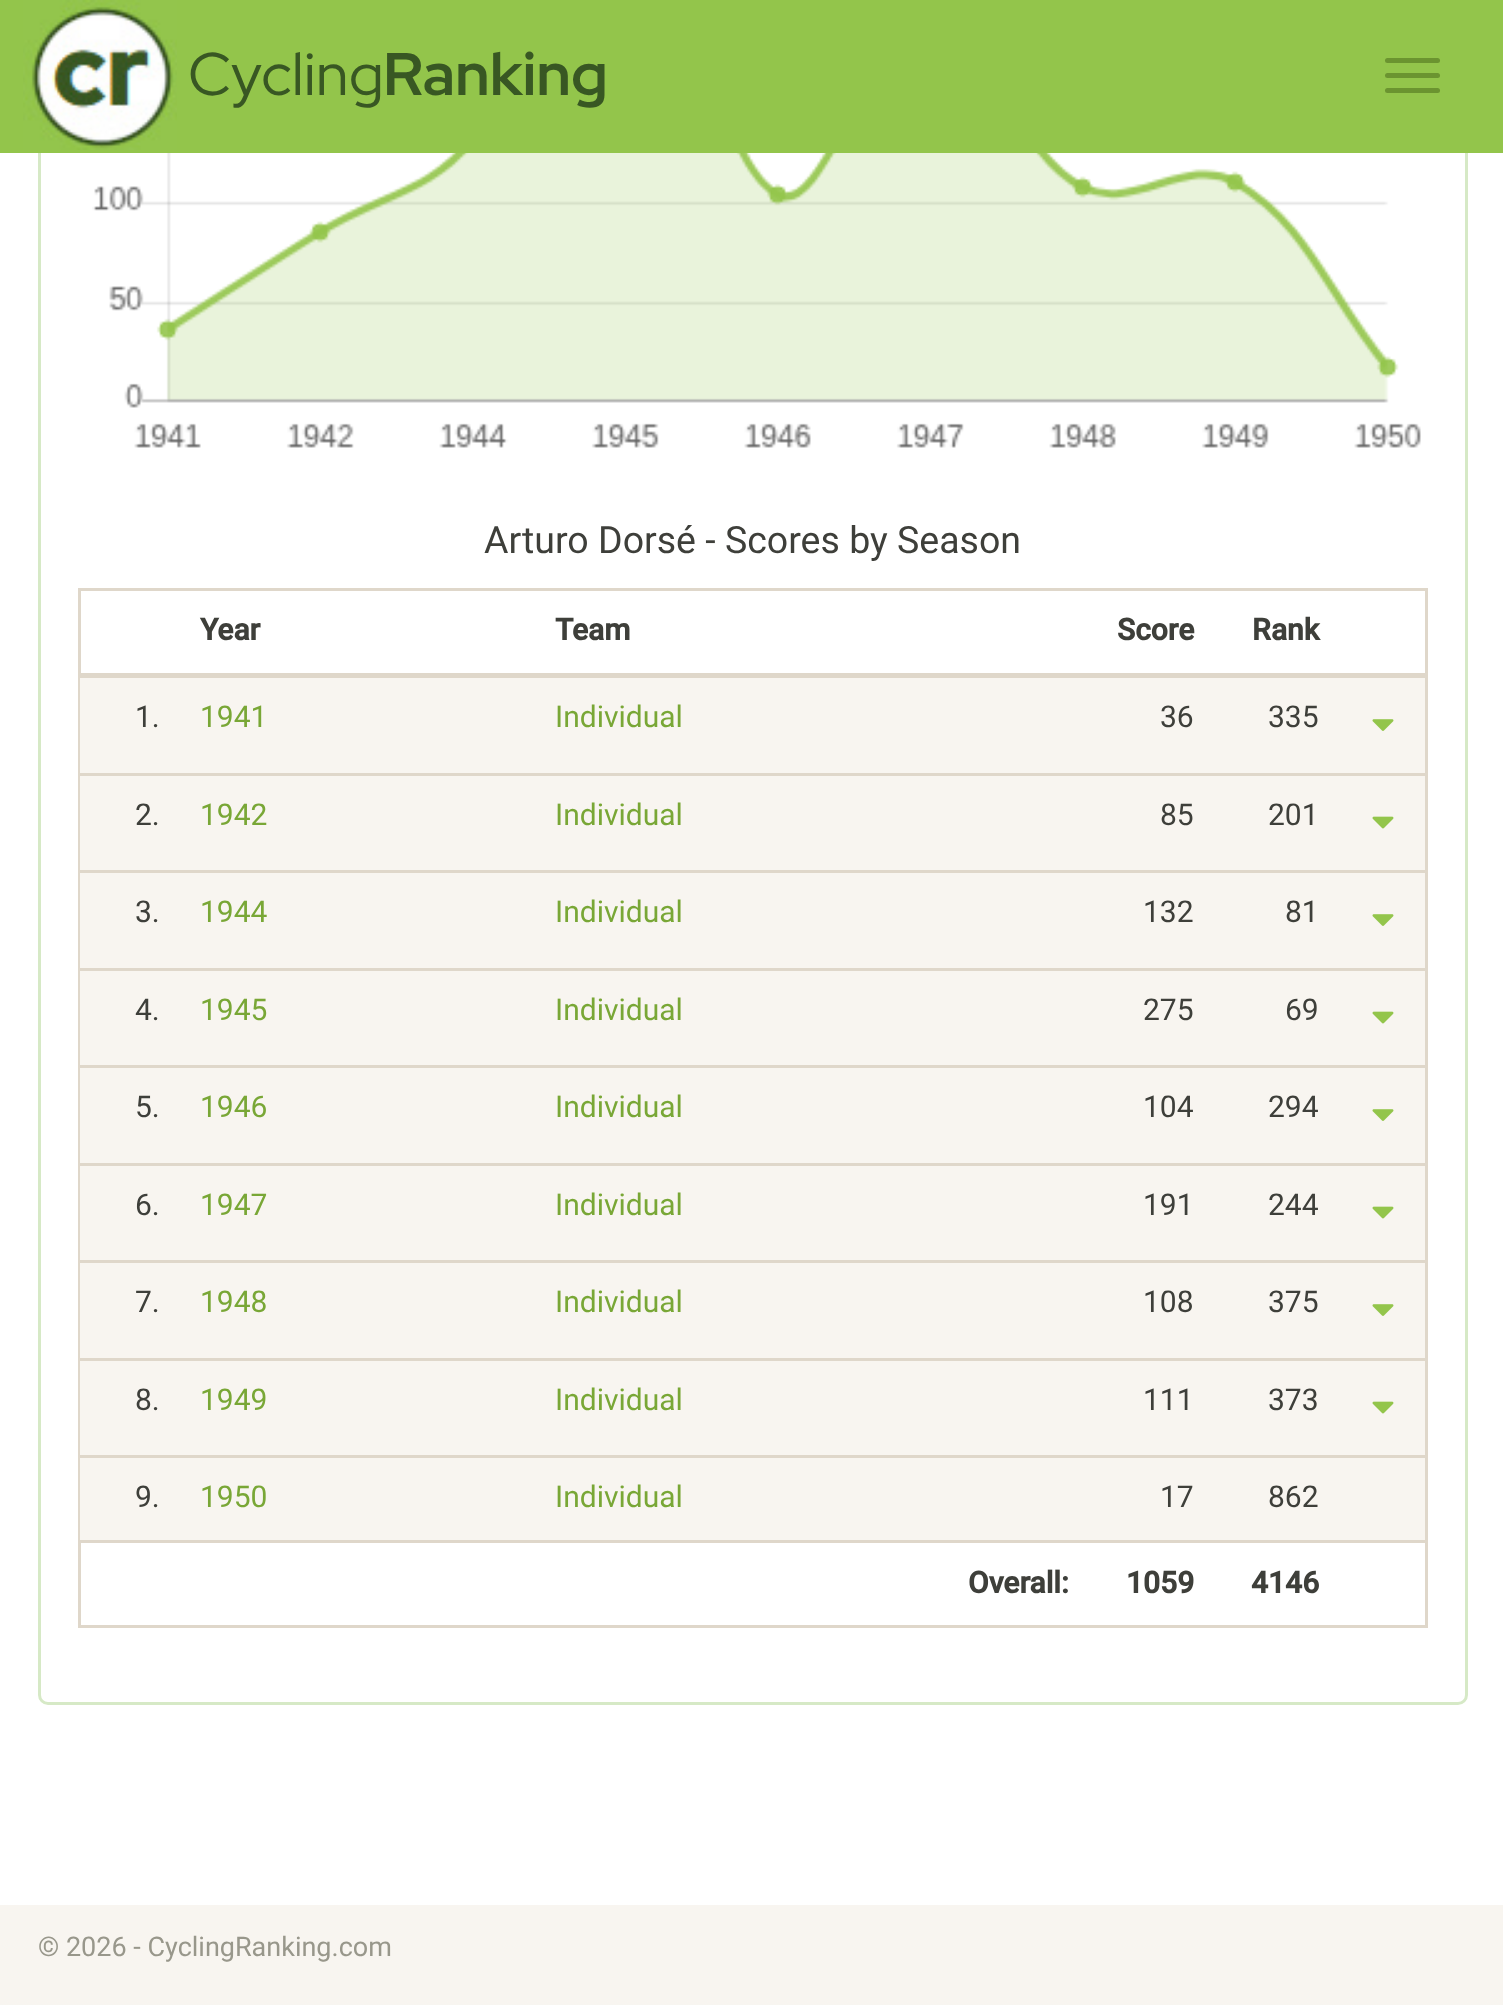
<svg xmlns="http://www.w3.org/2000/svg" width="1503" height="2005">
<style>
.a{font:60px Red Hat Display;fill:#385723}
.b{font:bold 60px Red Hat Display;fill:#385723}
.c{font:37.5px Roboto;fill:#3e3f3a}
.d{font:bold 30px Roboto;fill:#3e3f3a}
.e{font:30px Roboto;fill:#3e3f3a}
.f{font:30px Roboto;fill:#79a736}
.g{font:27px Roboto;fill:#98978b}
</style>
<rect width="100%" height="100%" fill="#fff"/>
<rect fill="none" stroke="#d6e9c6" stroke-width="3" x="39.5" y="-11.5" width="1427" height="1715" rx="8.5"/>
<path fill="#93c54b" d="M0 0h1503v153H0z"/>
<image href="1.png" x="23" y="0" width="154" height="150"/>
<rect fill="#6b9430" x="1385" y="58" width="55" height="5" rx="2.5"/>
<rect fill="#6b9430" x="1385" y="73" width="55" height="5" rx="2.5"/>
<rect fill="#6b9430" x="1385" y="88" width="55" height="5" rx="2.5"/>
<image href="2.png" x="92" y="153" width="1329" height="295"/>
<path fill="none" stroke="#dfd7ca" stroke-width="3" d="M79.5 589.5h1347v1037H79.5z"/>
<path fill="#dfd7ca" d="M80 673h1345v5H80z"/>
<path fill="#f8f5f0" d="M80 678h1345v95H80z"/>
<image href="3.png" x="1372" y="719" width="22" height="12"/>
<path fill="#dfd7ca" d="M80 773h1345v3H80z"/>
<path fill="#f8f5f0" d="M80 776h1345v94H80z"/>
<image href="4.png" x="1372" y="816" width="22" height="13"/>
<path fill="#dfd7ca" d="M80 870h1345v3H80z"/>
<path fill="#f8f5f0" d="M80 873h1345v95H80z"/>
<image href="3.png" x="1372" y="914" width="22" height="12"/>
<path fill="#dfd7ca" d="M80 968h1345v3H80z"/>
<path fill="#f8f5f0" d="M80 971h1345v94H80z"/>
<image href="4.png" x="1372" y="1011" width="22" height="13"/>
<path fill="#dfd7ca" d="M80 1065h1345v3H80z"/>
<path fill="#f8f5f0" d="M80 1068h1345v95H80z"/>
<image href="3.png" x="1372" y="1109" width="22" height="12"/>
<path fill="#dfd7ca" d="M80 1163h1345v3H80z"/>
<path fill="#f8f5f0" d="M80 1166h1345v94H80z"/>
<image href="4.png" x="1372" y="1206" width="22" height="13"/>
<path fill="#dfd7ca" d="M80 1260h1345v3H80z"/>
<path fill="#f8f5f0" d="M80 1263h1345v95H80z"/>
<image href="3.png" x="1372" y="1304" width="22" height="12"/>
<path fill="#dfd7ca" d="M80 1358h1345v3H80z"/>
<path fill="#f8f5f0" d="M80 1361h1345v94H80z"/>
<image href="4.png" x="1372" y="1401" width="22" height="13"/>
<path fill="#dfd7ca" d="M80 1455h1345v3H80z"/>
<path fill="#f8f5f0" d="M80 1458h1345v82H80z"/>
<path fill="#dfd7ca" d="M80 1540h1345v3H80z"/>
<path fill="#f8f5f0" d="M0 1905h1503v100H0z"/>
<text class="a" x="188" y="95">Cycling</text>
<text class="b" x="383" y="95">Ranking</text>
<text class="c" x="484" y="553">Arturo Dorsé - Scores by Season</text>
<text class="d" x="200" y="640">Year</text>
<text class="d" x="555" y="640">Team</text>
<text class="d" x="1117" y="640">Score</text>
<text class="d" x="1252" y="640">Rank</text>
<text class="e" x="135" y="727">1.</text>
<text class="f" x="200" y="727">1941</text>
<text class="f" x="555" y="727">Individual</text>
<text class="e" x="1160" y="727">36</text>
<text class="e" x="1268" y="727">335</text>
<text class="e" x="135" y="825">2.</text>
<text class="f" x="200" y="825">1942</text>
<text class="f" x="555" y="825">Individual</text>
<text class="e" x="1160" y="825">85</text>
<text class="e" x="1268" y="825">201</text>
<text class="e" x="135" y="922">3.</text>
<text class="f" x="200" y="922">1944</text>
<text class="f" x="555" y="922">Individual</text>
<text class="e" x="1143" y="922">132</text>
<text class="e" x="1285" y="922">81</text>
<text class="e" x="135" y="1020">4.</text>
<text class="f" x="200" y="1020">1945</text>
<text class="f" x="555" y="1020">Individual</text>
<text class="e" x="1143" y="1020">275</text>
<text class="e" x="1285" y="1020">69</text>
<text class="e" x="135" y="1117">5.</text>
<text class="f" x="200" y="1117">1946</text>
<text class="f" x="555" y="1117">Individual</text>
<text class="e" x="1143" y="1117">104</text>
<text class="e" x="1268" y="1117">294</text>
<text class="e" x="135" y="1215">6.</text>
<text class="f" x="200" y="1215">1947</text>
<text class="f" x="555" y="1215">Individual</text>
<text class="e" x="1143" y="1215">191</text>
<text class="e" x="1268" y="1215">244</text>
<text class="e" x="135" y="1312">7.</text>
<text class="f" x="200" y="1312">1948</text>
<text class="f" x="555" y="1312">Individual</text>
<text class="e" x="1143" y="1312">108</text>
<text class="e" x="1268" y="1312">375</text>
<text class="e" x="135" y="1410">8.</text>
<text class="f" x="200" y="1410">1949</text>
<text class="f" x="555" y="1410">Individual</text>
<text class="e" x="1143" y="1410">111</text>
<text class="e" x="1268" y="1410">373</text>
<text class="e" x="135" y="1507">9.</text>
<text class="f" x="200" y="1507">1950</text>
<text class="f" x="555" y="1507">Individual</text>
<text class="e" x="1160" y="1507">17</text>
<text class="e" x="1268" y="1507">862</text>
<text class="d" x="968" y="1593">Overall:</text>
<text class="d" x="1126" y="1593">1059</text>
<text class="d" x="1251" y="1593">4146</text>
<text class="g" x="38" y="1956">© 2026 - CyclingRanking.com</text>
</svg>
